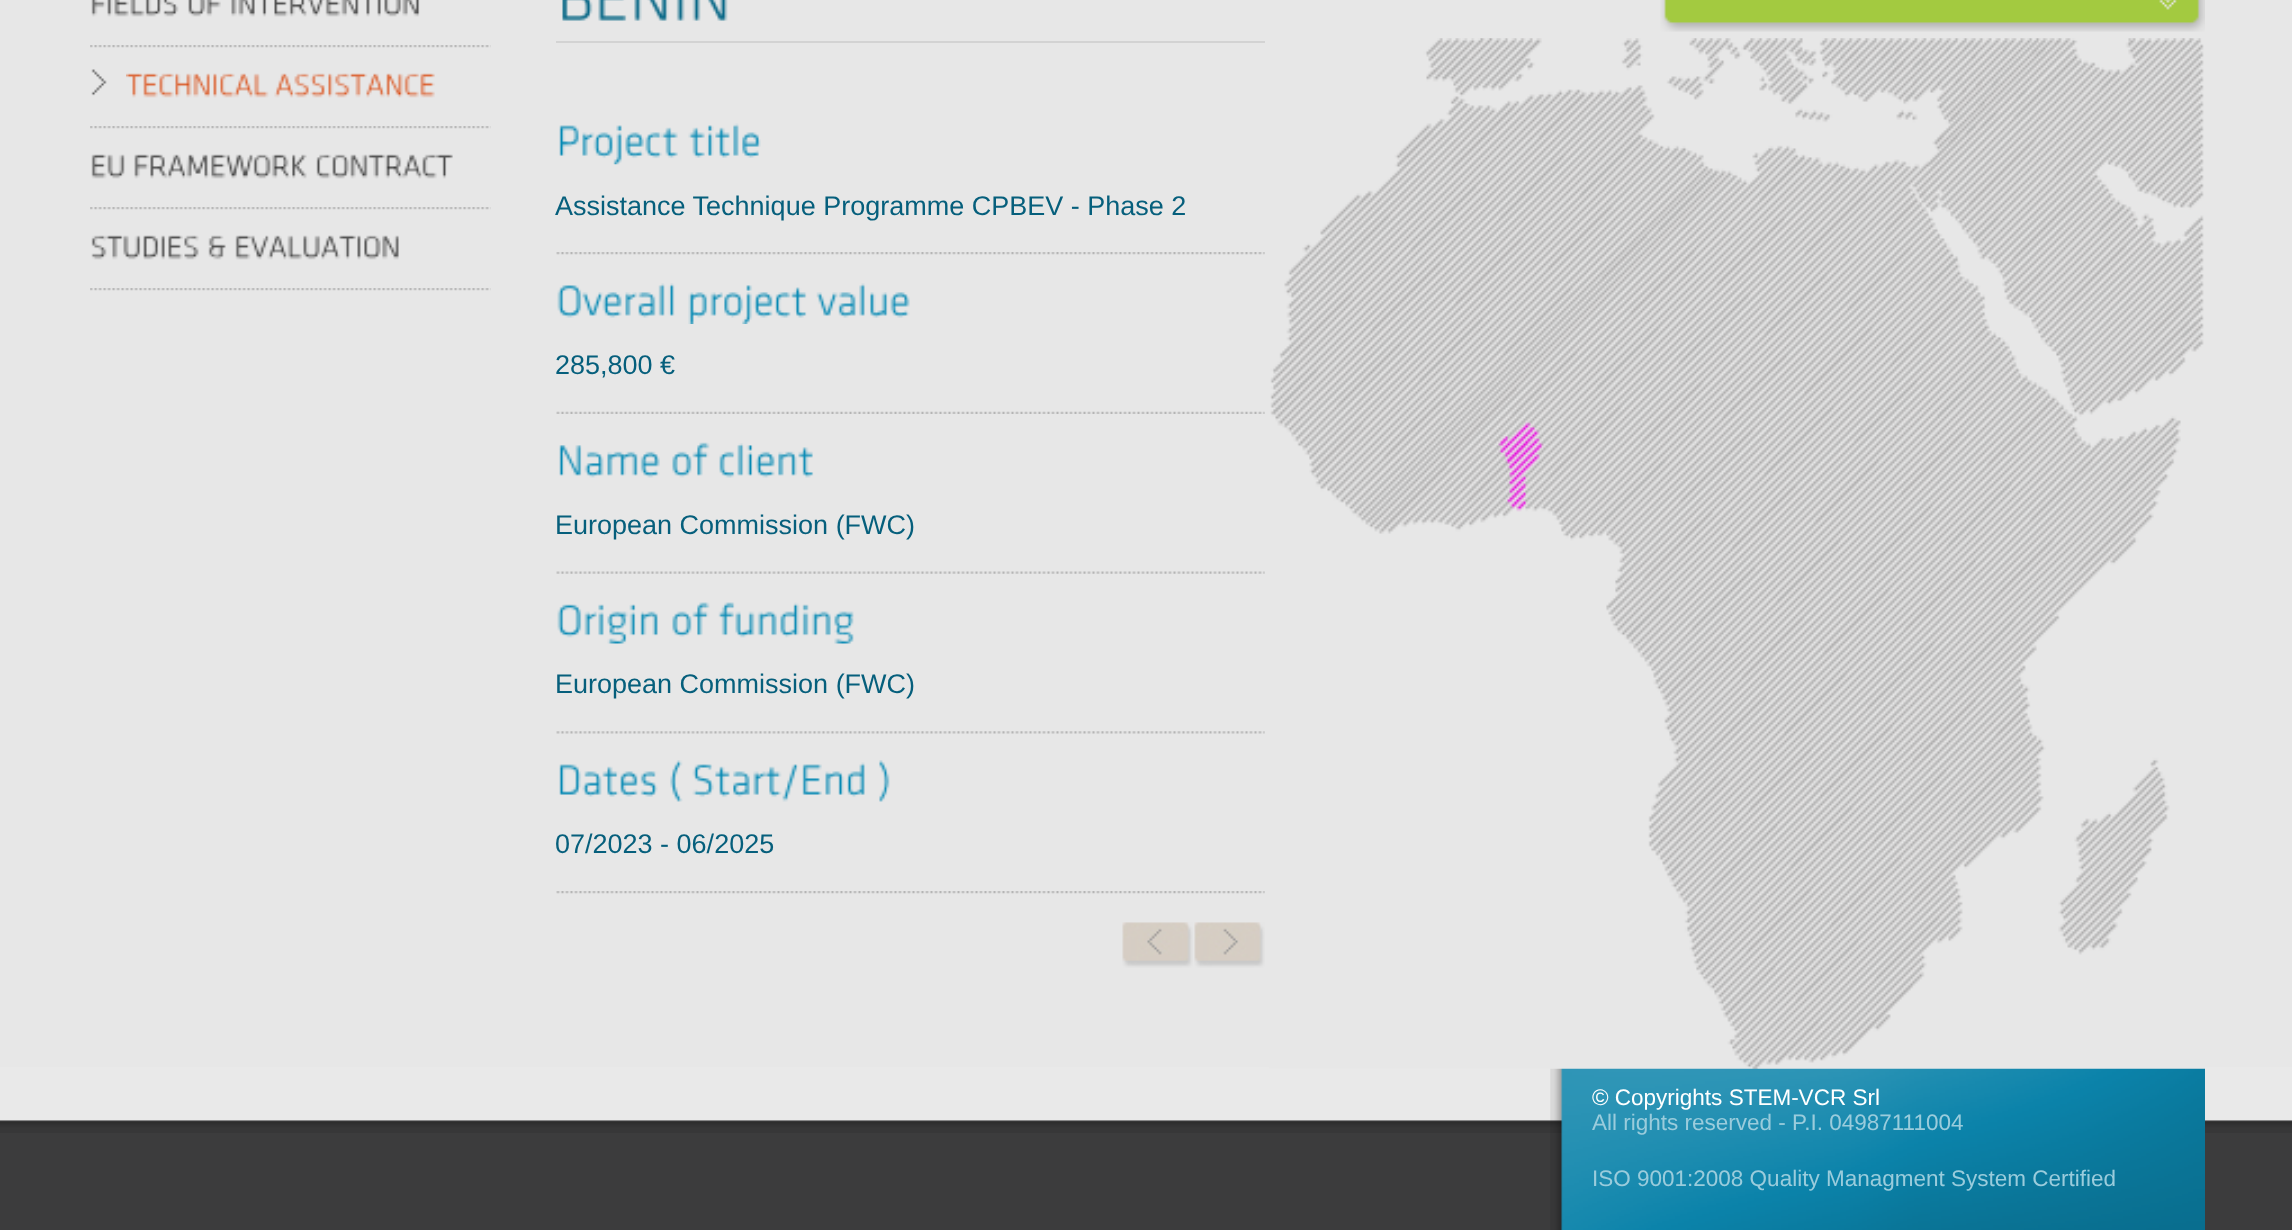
<svg xmlns="http://www.w3.org/2000/svg" width="2292" height="1230">
<style>
.a{font:27px Liberation Sans;fill:#065f7c}
.b{font:22.5px Liberation Sans;fill:#fff}
.c{font:22.5px Liberation Sans;fill:#9accdc}
</style>
<rect width="100%" height="100%" fill="#3c3c3d"/>
<path fill="#e7e7e7" d="M0 0h2292v1067H0z"/>
<image href="1.png" x="90" y="45" width="401" height="3"/>
<image href="2.png" x="91" y="0" width="88" height="17"/>
<image href="3.png" x="188" y="0" width="33" height="17"/>
<image href="4.png" x="231" y="0" width="189" height="17"/>
<image href="1.png" x="90" y="126" width="401" height="3"/>
<image href="5.png" x="91" y="69" width="16" height="27"/>
<image href="6.png" x="126" y="73" width="143" height="25"/>
<image href="7.png" x="274" y="73" width="161" height="25"/>
<image href="1.png" x="90" y="207" width="401" height="3"/>
<image href="8.png" x="91" y="154" width="34" height="25"/>
<image href="9.png" x="134" y="154" width="173" height="25"/>
<image href="10.png" x="316" y="154" width="137" height="25"/>
<image href="1.png" x="90" y="288" width="401" height="3"/>
<image href="11.png" x="91" y="235" width="108" height="25"/>
<image href="12.png" x="208" y="235" width="18" height="25"/>
<image href="13.png" x="235" y="235" width="164" height="25"/>
<path fill="#d3d3d3" d="M556 41h709v2H556z"/>
<image href="14.png" x="562" y="0" width="166" height="21"/>
<image href="15.png" x="556" y="252" width="709" height="3"/>
<image href="16.png" x="559" y="125" width="119" height="40"/>
<image href="17.png" x="688" y="123" width="73" height="35"/>
<image href="18.png" x="556" y="411" width="709" height="3"/>
<image href="19.png" x="557" y="283" width="118" height="35"/>
<image href="20.png" x="688" y="285" width="119" height="39"/>
<image href="21.png" x="816" y="283" width="94" height="35"/>
<image href="22.png" x="556" y="571" width="709" height="3"/>
<image href="23.png" x="559" y="445" width="101" height="33"/>
<image href="24.png" x="672" y="442" width="38" height="36"/>
<image href="25.png" x="719" y="443" width="95" height="35"/>
<image href="26.png" x="556" y="731" width="709" height="3"/>
<image href="27.png" x="557" y="604" width="101" height="40"/>
<image href="28.png" x="672" y="602" width="38" height="35"/>
<image href="29.png" x="718" y="602" width="136" height="42"/>
<image href="15.png" x="556" y="891" width="709" height="3"/>
<image href="30.png" x="559" y="764" width="99" height="33"/>
<image href="31.png" x="670" y="760" width="13" height="42"/>
<image href="32.png" x="692" y="762" width="173" height="40"/>
<image href="33.png" x="879" y="760" width="11" height="42"/>
<image href="34.png" x="1122" y="922" width="71" height="46"/>
<image href="35.png" x="1122" y="922" width="67" height="39"/>
<image href="36.png" x="1194" y="922" width="71" height="46"/>
<image href="37.png" x="1194" y="922" width="67" height="39"/>
<image href="38.png" x="1660" y="0" width="545" height="32"/>
<image href="40.png" x="0" y="1067" width="2292" height="66"/>
<image href="41.png" x="1550" y="1068" width="655" height="162"/>
<image href="39.png" x="1269" y="38" width="936" height="1031"/>
<text class="a" x="555" y="215">Assistance Technique Programme CPBEV - Phase 2</text>
<text class="a" x="555" y="374">285,800 €</text>
<text class="a" x="555" y="534">European Commission (FWC)</text>
<text class="a" x="555" y="693">European Commission (FWC)</text>
<text class="a" x="555" y="853">07/2023 - 06/2025</text>
<text class="b" x="1592" y="1105">© Copyrights STEM-VCR Srl</text>
<text class="c" x="1592" y="1130">All rights reserved - P.I. 04987111004</text>
<text class="c" x="1592" y="1186">ISO 9001:2008 Quality Managment System Certified</text>
</svg>
